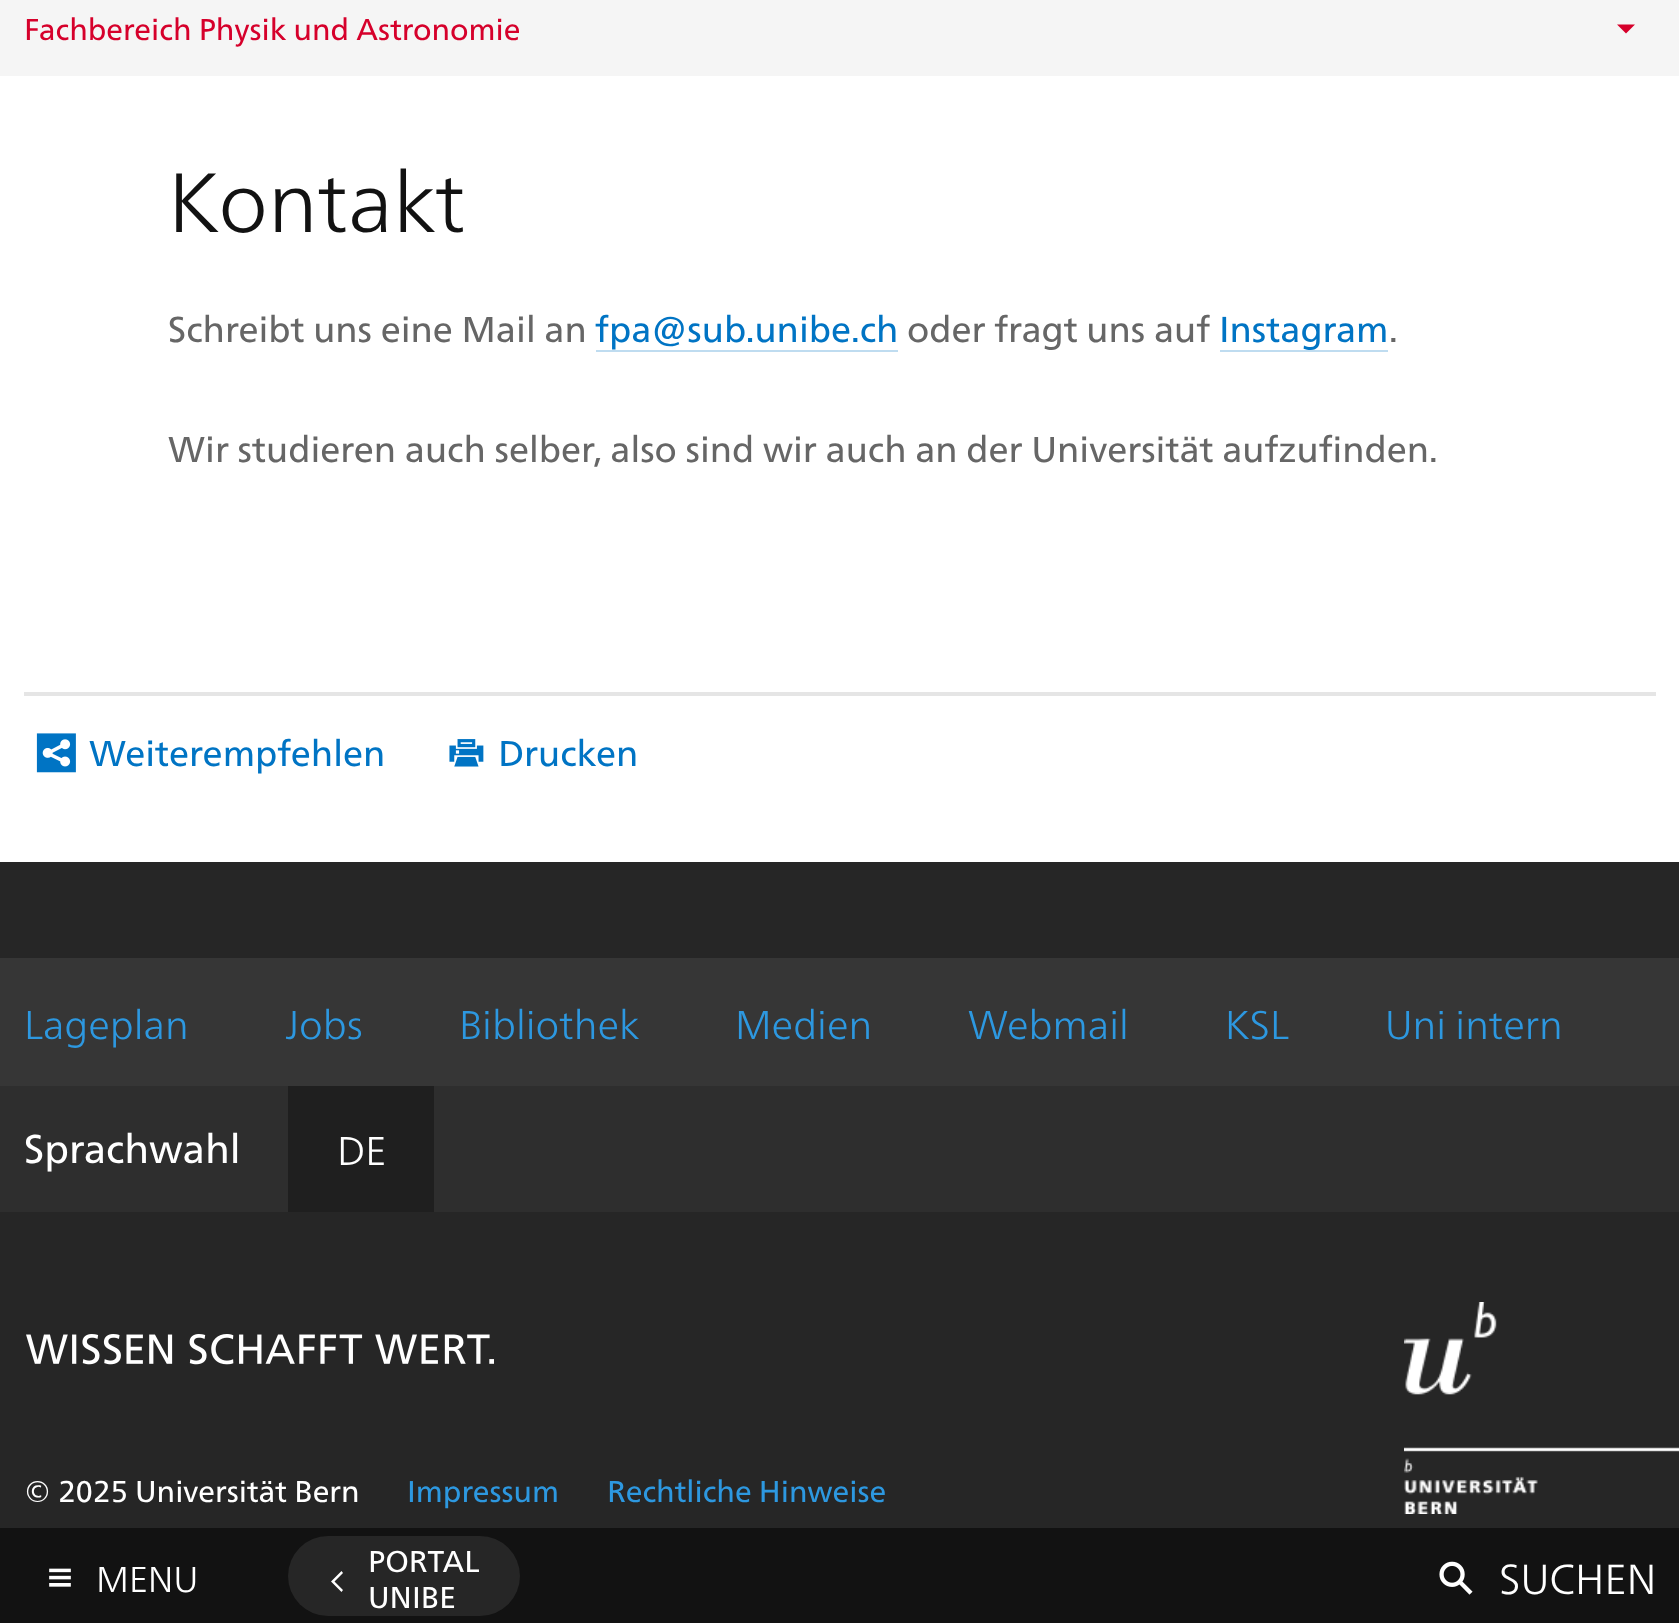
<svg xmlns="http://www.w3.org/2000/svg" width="1679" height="1623">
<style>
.a{font:30px 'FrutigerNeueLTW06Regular';fill:#d6002b}
.b{font:300 84px 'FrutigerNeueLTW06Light';fill:#121212}
.c{font:36px 'FrutigerNeueLTW06Regular';fill:#666}
.d{font:36px 'FrutigerNeueLTW06Regular';fill:#0074c4}
.e{font:300 40px 'FrutigerNeueLTW06Light';fill:#2d98e0}
.f{font:40px 'FrutigerNeueLTW06Regular';fill:#fff}
.g{font:300 40px 'FrutigerNeueLTW06Light';fill:#fff}
.h{font:30px 'FrutigerNeueLTW06Regular';fill:#fff}
.i{font:30px 'FrutigerNeueLTW06Regular';fill:#2d98e0}
.j{font:300 36px 'FrutigerNeueLTW06Light';fill:#fff}
.k{font:300 42px 'FrutigerNeueLTW06Light';fill:#fff}
</style>
<rect width="100%" height="100%" fill="#fff"/>
<path fill="#f5f5f5" d="M0 0h1679v76H0z"/>
<path fill="#d6002b" d="M1617 24.5l9 9l9-9z"/>
<path fill="#bfdcf0" d="M596 350h302v2H596z"/>
<path fill="#bfdcf0" d="M1220 350h168v2H1220z"/>
<path fill="#e5e5e5" d="M24 692h1632v4H24z"/>
<image href="1.png" x="36" y="733" width="40" height="40"/>
<image href="2.png" x="449" y="739" width="35" height="28"/>
<path fill="#262626" d="M0 862h1679v666H0z"/>
<path fill="#363636" d="M0 958h1679v128H0z"/>
<path fill="#2e2e2e" d="M0 1086h1679v126H0z"/>
<path fill="#1f1f1f" d="M288 1086h146v126H288z"/>
<image href="3.png" x="26" y="1334" width="468" height="31"/>
<image href="4.png" x="1404" y="1302" width="275" height="212"/>
<path fill="#121212" d="M0 1528h1679v95H0z"/>
<image href="5.png" x="49" y="1568" width="22" height="19"/>
<rect fill="#262626" x="288" y="1536" width="232" height="80" rx="40"/>
<path fill="#fff" d="M341.5 1592l-10.5-10.5l10.5-10.5l1.5 2l-8.5 8.5l8.5 8.5z"/>
<image href="6.png" x="1439" y="1561" width="34" height="34"/>
<text class="a" x="24" y="40">Fachbereich Physik und Astronomie</text>
<text class="b" x="168" y="232">Kontakt</text>
<text class="c" x="168" y="342">Schreibt uns eine Mail an</text>
<text class="d" x="595" y="342">fpa@sub.unibe.ch</text>
<text class="c" x="907" y="342">oder fragt uns auf</text>
<text class="d" x="1219" y="342">Instagram</text>
<text class="c" x="1389" y="342">.</text>
<text class="c" x="168" y="462">Wir studieren auch selber, also sind wir auch an der Universität aufzufinden.</text>
<text class="d" x="89" y="766">Weiterempfehlen</text>
<text class="d" x="498" y="766">Drucken</text>
<text class="e" x="24" y="1039">Lageplan</text>
<text class="e" x="285" y="1039">Jobs</text>
<text class="e" x="459" y="1039">Bibliothek</text>
<text class="e" x="735" y="1039">Medien</text>
<text class="e" x="968" y="1039">Webmail</text>
<text class="e" x="1225" y="1039">KSL</text>
<text class="e" x="1385" y="1039">Uni intern</text>
<text class="f" x="24" y="1163">Sprachwahl</text>
<text class="g" x="337" y="1165">DE</text>
<text class="h" x="24" y="1502">© 2025 Universität Bern</text>
<text class="i" x="407" y="1502">Impressum</text>
<text class="i" x="607" y="1502">Rechtliche Hinweise</text>
<text class="j" x="96" y="1592">MENU</text>
<text class="h" x="368" y="1572">PORTAL</text>
<text class="h" x="368" y="1608">UNIBE</text>
<text class="k" x="1499" y="1594">SUCHEN</text>
</svg>
